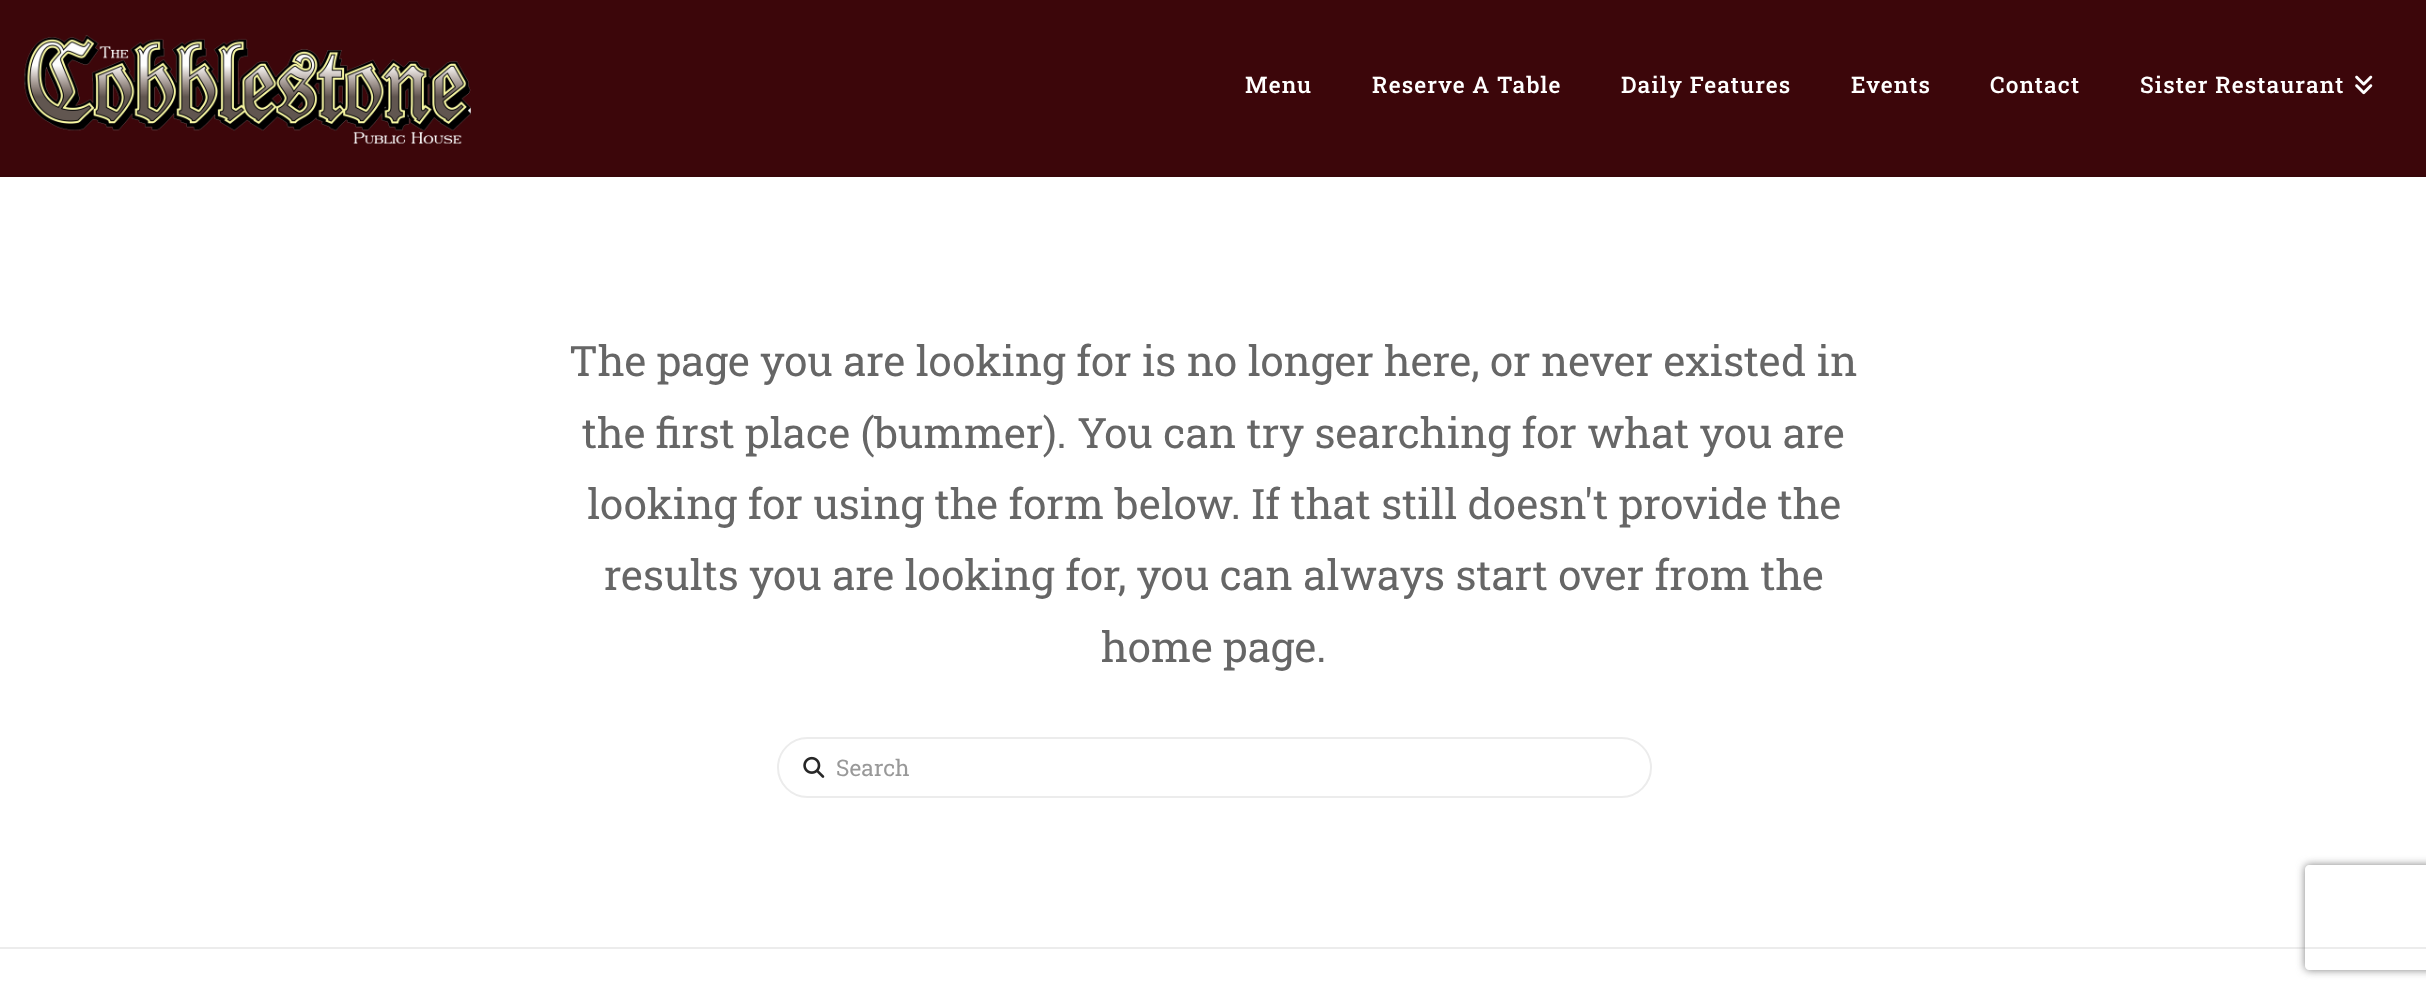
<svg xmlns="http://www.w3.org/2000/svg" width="2426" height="994">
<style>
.a{font:500 22.75px Roboto Slab;letter-spacing:1.1px;fill:#fff}
.b{font:42px Roboto Slab;fill:#666}
.c{font:22.75px Roboto Slab;fill:#999}
</style>
<defs>
<clipPath id="clip1"><path d="M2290 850h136v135h-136zm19 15h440c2 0 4 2 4 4v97c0 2-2 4-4 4h-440c-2 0-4-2-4-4v-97c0-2 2-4 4-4z" clip-rule="evenodd"/></clipPath>
<clipPath id="clip2"><path d="M837 753h798v31H837z"/></clipPath>
</defs>
<rect width="100%" height="100%" fill="#fff"/>
<path fill="#3c060a" d="M0 0h2426v175H0z"/>
<path fill="#380609" d="M0 175h2426v2H0z"/>
<image href="1.png" x="24" y="35" width="447" height="109"/>
<image href="2.png" x="2355" y="75" width="18" height="20"/>
<rect fill="none" stroke="#ececec" stroke-width="2" x="778" y="738" width="873" height="59" rx="29.5"/>
<image href="3.png" x="803" y="756" width="22" height="22"/>
<path fill="#ececec" d="M0 947h2426v2H0z"/>
<g clip-path="url(#clip1)">
<rect fill="#808080" filter="blur(4.5px)" x="2305" y="865" width="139" height="105" rx="4"/>
</g>
<text class="a" x="1245" y="93">Menu</text>
<text class="a" x="1372" y="93">Reserve A Table</text>
<text class="a" x="1621" y="93">Daily Features</text>
<text class="a" x="1851" y="93">Events</text>
<text class="a" x="1990" y="93">Contact</text>
<text class="a" x="2140" y="93">Sister Restaurant</text>
<text class="b" x="569" y="376">The page you are looking for is no longer here, or never existed in</text>
<text class="b" x="582" y="448">the first place (bummer). You can try searching for what you are</text>
<text class="b" x="587" y="519">looking for using the form below. If that still doesn't provide the</text>
<text class="b" x="604" y="590">results you are looking for, you can always start over from the</text>
<text class="b" x="1101" y="662">home page.</text>
<g clip-path="url(#clip2)">
<text class="c" x="836" y="776">Search</text>
</g>
</svg>
